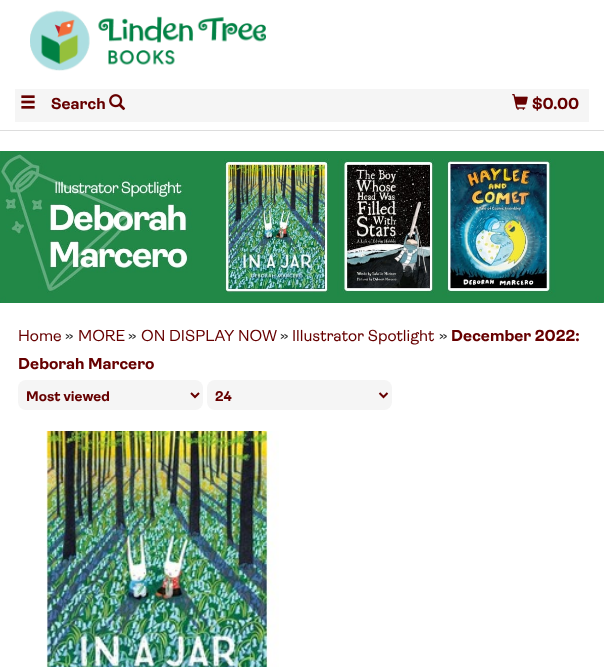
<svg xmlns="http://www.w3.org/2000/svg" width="604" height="667">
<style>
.a{font:bold 16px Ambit;fill:#600}
.b{font:16px Ambit;fill:#600}
.c{font:16px Ambit;fill:#333}
.d{font:bold 14px Ambit;fill:#600}
</style>
<rect width="100%" height="100%" fill="#fff"/>
<path fill="#ddd" d="M0 130h604v1H0z"/>
<image href="1.png" x="30" y="10" width="236" height="61"/>
<path fill="#f5f5f5" d="M15 89h574v33H15z"/>
<image href="2.png" x="21" y="95" width="14" height="14"/>
<image href="3.png" x="109" y="94" width="17" height="17"/>
<image href="4.png" x="512" y="94" width="16" height="16"/>
<image href="5.png" x="0" y="151" width="604" height="152"/>
<rect fill="#f5f5f5" x="18" y="380" width="185" height="30" rx="8"/>
<path fill="none" stroke="#600" stroke-width="2" d="M191 393l4 4l4-4"/>
<rect fill="#f5f5f5" x="207" y="380" width="185" height="30" rx="8"/>
<path fill="none" stroke="#600" stroke-width="2" d="M379.5 393l4 4l4-4"/>
<image href="6.png" x="46" y="431" width="233" height="236"/>
<text class="a" x="51" y="109">Search</text>
<text class="a" x="532" y="109">$0.00</text>
<text class="b" x="18" y="341">Home</text>
<text class="c" x="65" y="341">»</text>
<text class="b" x="78" y="341">MORE</text>
<text class="c" x="128" y="341">»</text>
<text class="b" x="141" y="341">ON DISPLAY NOW</text>
<text class="c" x="280" y="341">»</text>
<text class="b" x="292" y="341">Illustrator Spotlight</text>
<text class="c" x="439" y="341">»</text>
<text class="a" x="451" y="341">December 2022:</text>
<text class="a" x="18" y="369">Deborah Marcero</text>
<text class="d" x="26" y="401">Most viewed</text>
<text class="d" x="215" y="401">24</text>
</svg>
